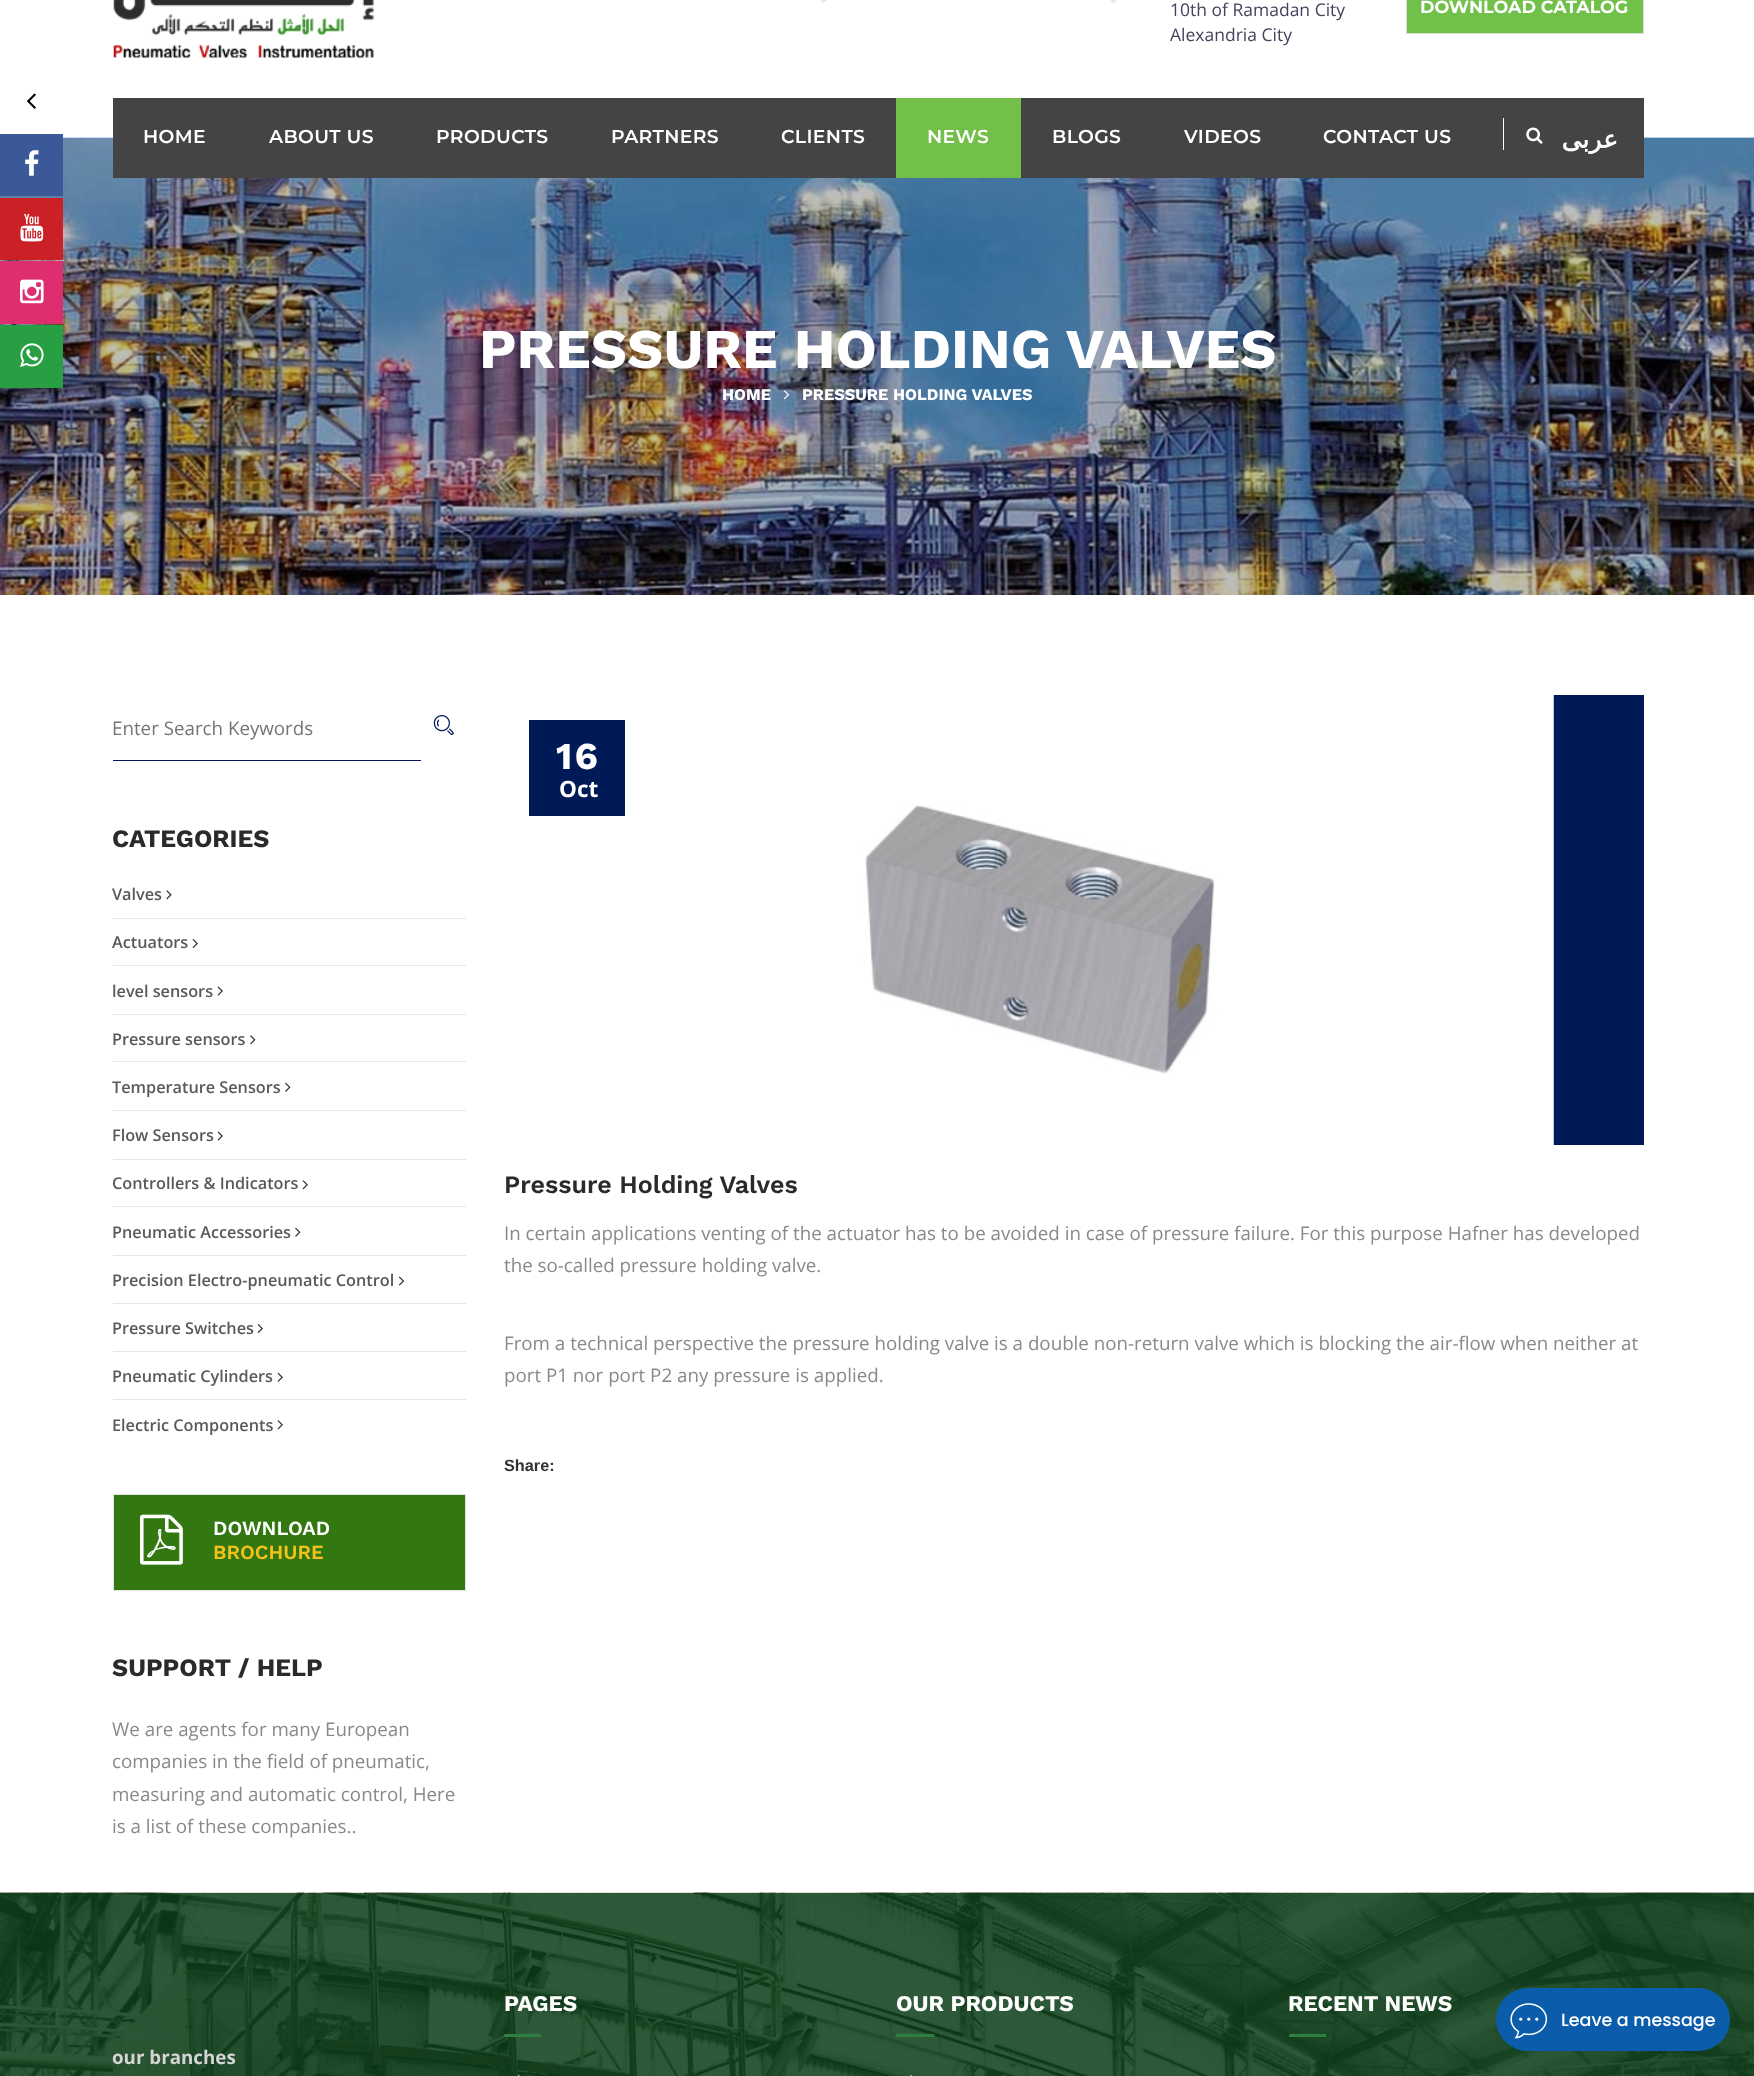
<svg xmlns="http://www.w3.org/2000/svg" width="1754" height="2076">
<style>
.a{font:17.5px Open Sans;fill:#42435d}
.b{font:bold 17.5px Montserrat;fill:#fff}
.c{font:600 18.75px Montserrat;letter-spacing:0.4px;fill:#fff}
.d{font:bold 25px DejaVu Sans;letter-spacing:0.4px;direction:rtl;fill:#fff}
.e{font:bold 56.25px Work Sans;fill:#fff}
.f{font:bold 16.25px Work Sans;fill:#fff}
.g{font:18.75px Open Sans;fill:#757575}
.h{font:bold 25px Work Sans;fill:#2a2a2a}
.i{font:600 16.25px Open Sans;fill:#595959}
.j{font:600 20px Work Sans;fill:#fff}
.k{font:600 20px Work Sans;fill:#f2c21a}
.l{font:18.75px Open Sans;fill:#898989}
.m{font:bold 38px Work Sans;letter-spacing:2px;fill:#fff}
.n{font:bold 22.5px Open Sans;fill:#fff}
.o{font:600 25px Work Sans;fill:#2a2a2a}
.p{font:bold 16.25px Liberation Sans;fill:#333}
.q{font:bold 22.5px Work Sans;fill:#fff}
.r{font:bold 18.75px Open Sans;fill:#d5d5d5}
.s{font:500 17.5px Poppins;fill:#fff}
</style>
<rect width="100%" height="100%" fill="#fff"/>
<image href="1.png" x="113" y="0" width="261" height="58"/>
<path fill="none" stroke="#ddd" stroke-width="1.3" d="M823.5-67l34.5 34.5l-34.5 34.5l-34.5-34.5z"/>
<path fill="none" stroke="#ddd" stroke-width="1.3" d="M1113.5-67l34.5 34.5l-34.5 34.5l-34.5-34.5z"/>
<path fill="#71c049" stroke="#ddd" d="M1406.5 -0.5h237v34H1406.5z"/>
<image href="8.png" x="0" y="137" width="1754" height="458"/>
<path fill="#454444" d="M113 98h1531v80H113z"/>
<path fill="#72bf49" d="M896 98h125v80H896z"/>
<path fill="#fff" d="M1503 118h1v32H1503z"/>
<image href="2.png" x="1526" y="127" width="17" height="17"/>
<image href="3.png" x="27" y="93" width="9" height="16"/>
<path fill="#3b5998" d="M0 134h63v62H0z"/>
<image href="4.png" x="25" y="150" width="14" height="26"/>
<path fill="#cb2026" d="M0 198h63v62H0z"/>
<image href="5.png" x="20" y="213" width="24" height="29"/>
<path fill="#de2e6f" d="M0 261h63v63H0z"/>
<image href="6.png" x="20" y="279" width="24" height="25"/>
<path fill="#299f43" d="M0 325h63v63H0z"/>
<image href="7.png" x="20" y="343" width="24" height="24"/>
<image href="9.png" x="783" y="390" width="7" height="10"/>
<path fill="#001a57" d="M113 760h308v1H113z"/>
<image href="10.png" x="433" y="715" width="21" height="20"/>
<path fill="#e6e6e6" d="M113 918h353v1H113z"/>
<image href="11.png" x="166" y="890" width="6" height="10"/>
<path fill="#e6e6e6" d="M113 965h353v1H113z"/>
<image href="12.png" x="192" y="939" width="6" height="9"/>
<path fill="#e6e6e6" d="M113 1014h353v1H113z"/>
<image href="13.png" x="217" y="986" width="6" height="10"/>
<path fill="#e6e6e6" d="M113 1061h353v1H113z"/>
<image href="14.png" x="250" y="1035" width="6" height="10"/>
<path fill="#e6e6e6" d="M113 1110h353v1H113z"/>
<image href="15.png" x="285" y="1082" width="6" height="10"/>
<path fill="#e6e6e6" d="M113 1159h353v1H113z"/>
<image href="13.png" x="217" y="1131" width="6" height="10"/>
<path fill="#e6e6e6" d="M113 1206h353v1H113z"/>
<image href="16.png" x="302" y="1180" width="6" height="10"/>
<path fill="#e6e6e6" d="M113 1255h353v1H113z"/>
<image href="15.png" x="295" y="1227" width="6" height="10"/>
<path fill="#e6e6e6" d="M113 1303h353v1H113z"/>
<image href="17.png" x="398" y="1276" width="7" height="10"/>
<path fill="#e6e6e6" d="M113 1351h353v1H113z"/>
<image href="12.png" x="257" y="1324" width="6" height="9"/>
<path fill="#e6e6e6" d="M113 1399h353v1H113z"/>
<image href="18.png" x="277" y="1372" width="6" height="10"/>
<image href="16.png" x="277" y="1420" width="6" height="10"/>
<path fill="#32770f" stroke="#e6e6e6" d="M113.5 1494.5h352v96H113.5z"/>
<image href="19.png" x="140" y="1514" width="43" height="51"/>
<path fill="#001a57" d="M1553 695h91v450H1553z"/>
<image href="20.png" x="504" y="695" width="1050" height="450"/>
<path fill="#001a57" d="M529 720h96v96H529z"/>
<image href="21.png" x="0" y="1892" width="1754" height="184"/>
<path fill="#2d8041" d="M504 2034h37v3H504z"/>
<image href="22.png" x="518" y="2074" width="2" height="2"/>
<path fill="#2d8041" d="M896 2034h38v3H896z"/>
<image href="23.png" x="910" y="2074" width="3" height="2"/>
<path fill="#2d8041" d="M1289 2034h37v3H1289z"/>
<rect fill="#0b5cab" x="1496" y="1988" width="234" height="63" rx="31.5"/>
<image href="24.png" x="1510" y="2003" width="38" height="36"/>
<text class="a" x="1170" y="16">10th of Ramadan City</text>
<text class="a" x="1170" y="41">Alexandria City</text>
<text class="b" x="1420" y="13">DOWNLOAD CATALOG</text>
<text class="c" x="143" y="143">HOME</text>
<text class="c" x="269" y="143">ABOUT US</text>
<text class="c" x="436" y="143">PRODUCTS</text>
<text class="c" x="611" y="143">PARTNERS</text>
<text class="c" x="781" y="143">CLIENTS</text>
<text class="c" x="927" y="143">NEWS</text>
<text class="c" x="1052" y="143">BLOGS</text>
<text class="c" x="1184" y="143">VIDEOS</text>
<text class="c" x="1323" y="143">CONTACT US</text>
<text class="d" x="1618" y="148">عربى</text>
<text class="e" x="479" y="368">PRESSURE HOLDING VALVES</text>
<text class="f" x="722" y="400">HOME</text>
<text class="f" x="802" y="400">PRESSURE HOLDING VALVES</text>
<text class="g" x="112" y="735">Enter Search Keywords</text>
<text class="h" x="112" y="847">CATEGORIES</text>
<text class="i" x="112" y="900">Valves</text>
<text class="i" x="112" y="948">Actuators</text>
<text class="i" x="112" y="997">level sensors</text>
<text class="i" x="112" y="1045">Pressure sensors</text>
<text class="i" x="112" y="1093">Temperature Sensors</text>
<text class="i" x="112" y="1141">Flow Sensors</text>
<text class="i" x="112" y="1189">Controllers &amp; Indicators</text>
<text class="i" x="112" y="1238">Pneumatic Accessories</text>
<text class="i" x="112" y="1286">Precision Electro-pneumatic Control</text>
<text class="i" x="112" y="1334">Pressure Switches</text>
<text class="i" x="112" y="1382">Pneumatic Cylinders</text>
<text class="i" x="112" y="1431">Electric Components</text>
<text class="j" x="213" y="1535">DOWNLOAD</text>
<text class="k" x="213" y="1559">BROCHURE</text>
<text class="h" x="112" y="1676">SUPPORT / HELP</text>
<text class="l" x="112" y="1736">We are agents for many European</text>
<text class="l" x="112" y="1768">companies in the field of pneumatic,</text>
<text class="l" x="112" y="1801">measuring and automatic control, Here</text>
<text class="l" x="112" y="1833">is a list of these companies..</text>
<text class="m" x="556" y="769">16</text>
<text class="n" x="559" y="797">Oct</text>
<text class="o" x="504" y="1193">Pressure Holding Valves</text>
<text class="l" x="504" y="1240">In certain applications venting of the actuator has to be avoided in case of pressure failure. For this purpose Hafner has developed</text>
<text class="l" x="504" y="1272">the so-called pressure holding valve.</text>
<text class="l" x="504" y="1350">From a technical perspective the pressure holding valve is a double non-return valve which is blocking the air-flow when neither at</text>
<text class="l" x="504" y="1382">port P1 nor port P2 any pressure is applied.</text>
<text class="p" x="504" y="1471">Share:</text>
<text class="q" x="504" y="2011">PAGES</text>
<text class="q" x="896" y="2011">OUR PRODUCTS</text>
<text class="q" x="1288" y="2011">RECENT NEWS</text>
<text class="r" x="112" y="2064">our branches</text>
<text class="s" x="1561" y="2026">Leave a message</text>
</svg>
